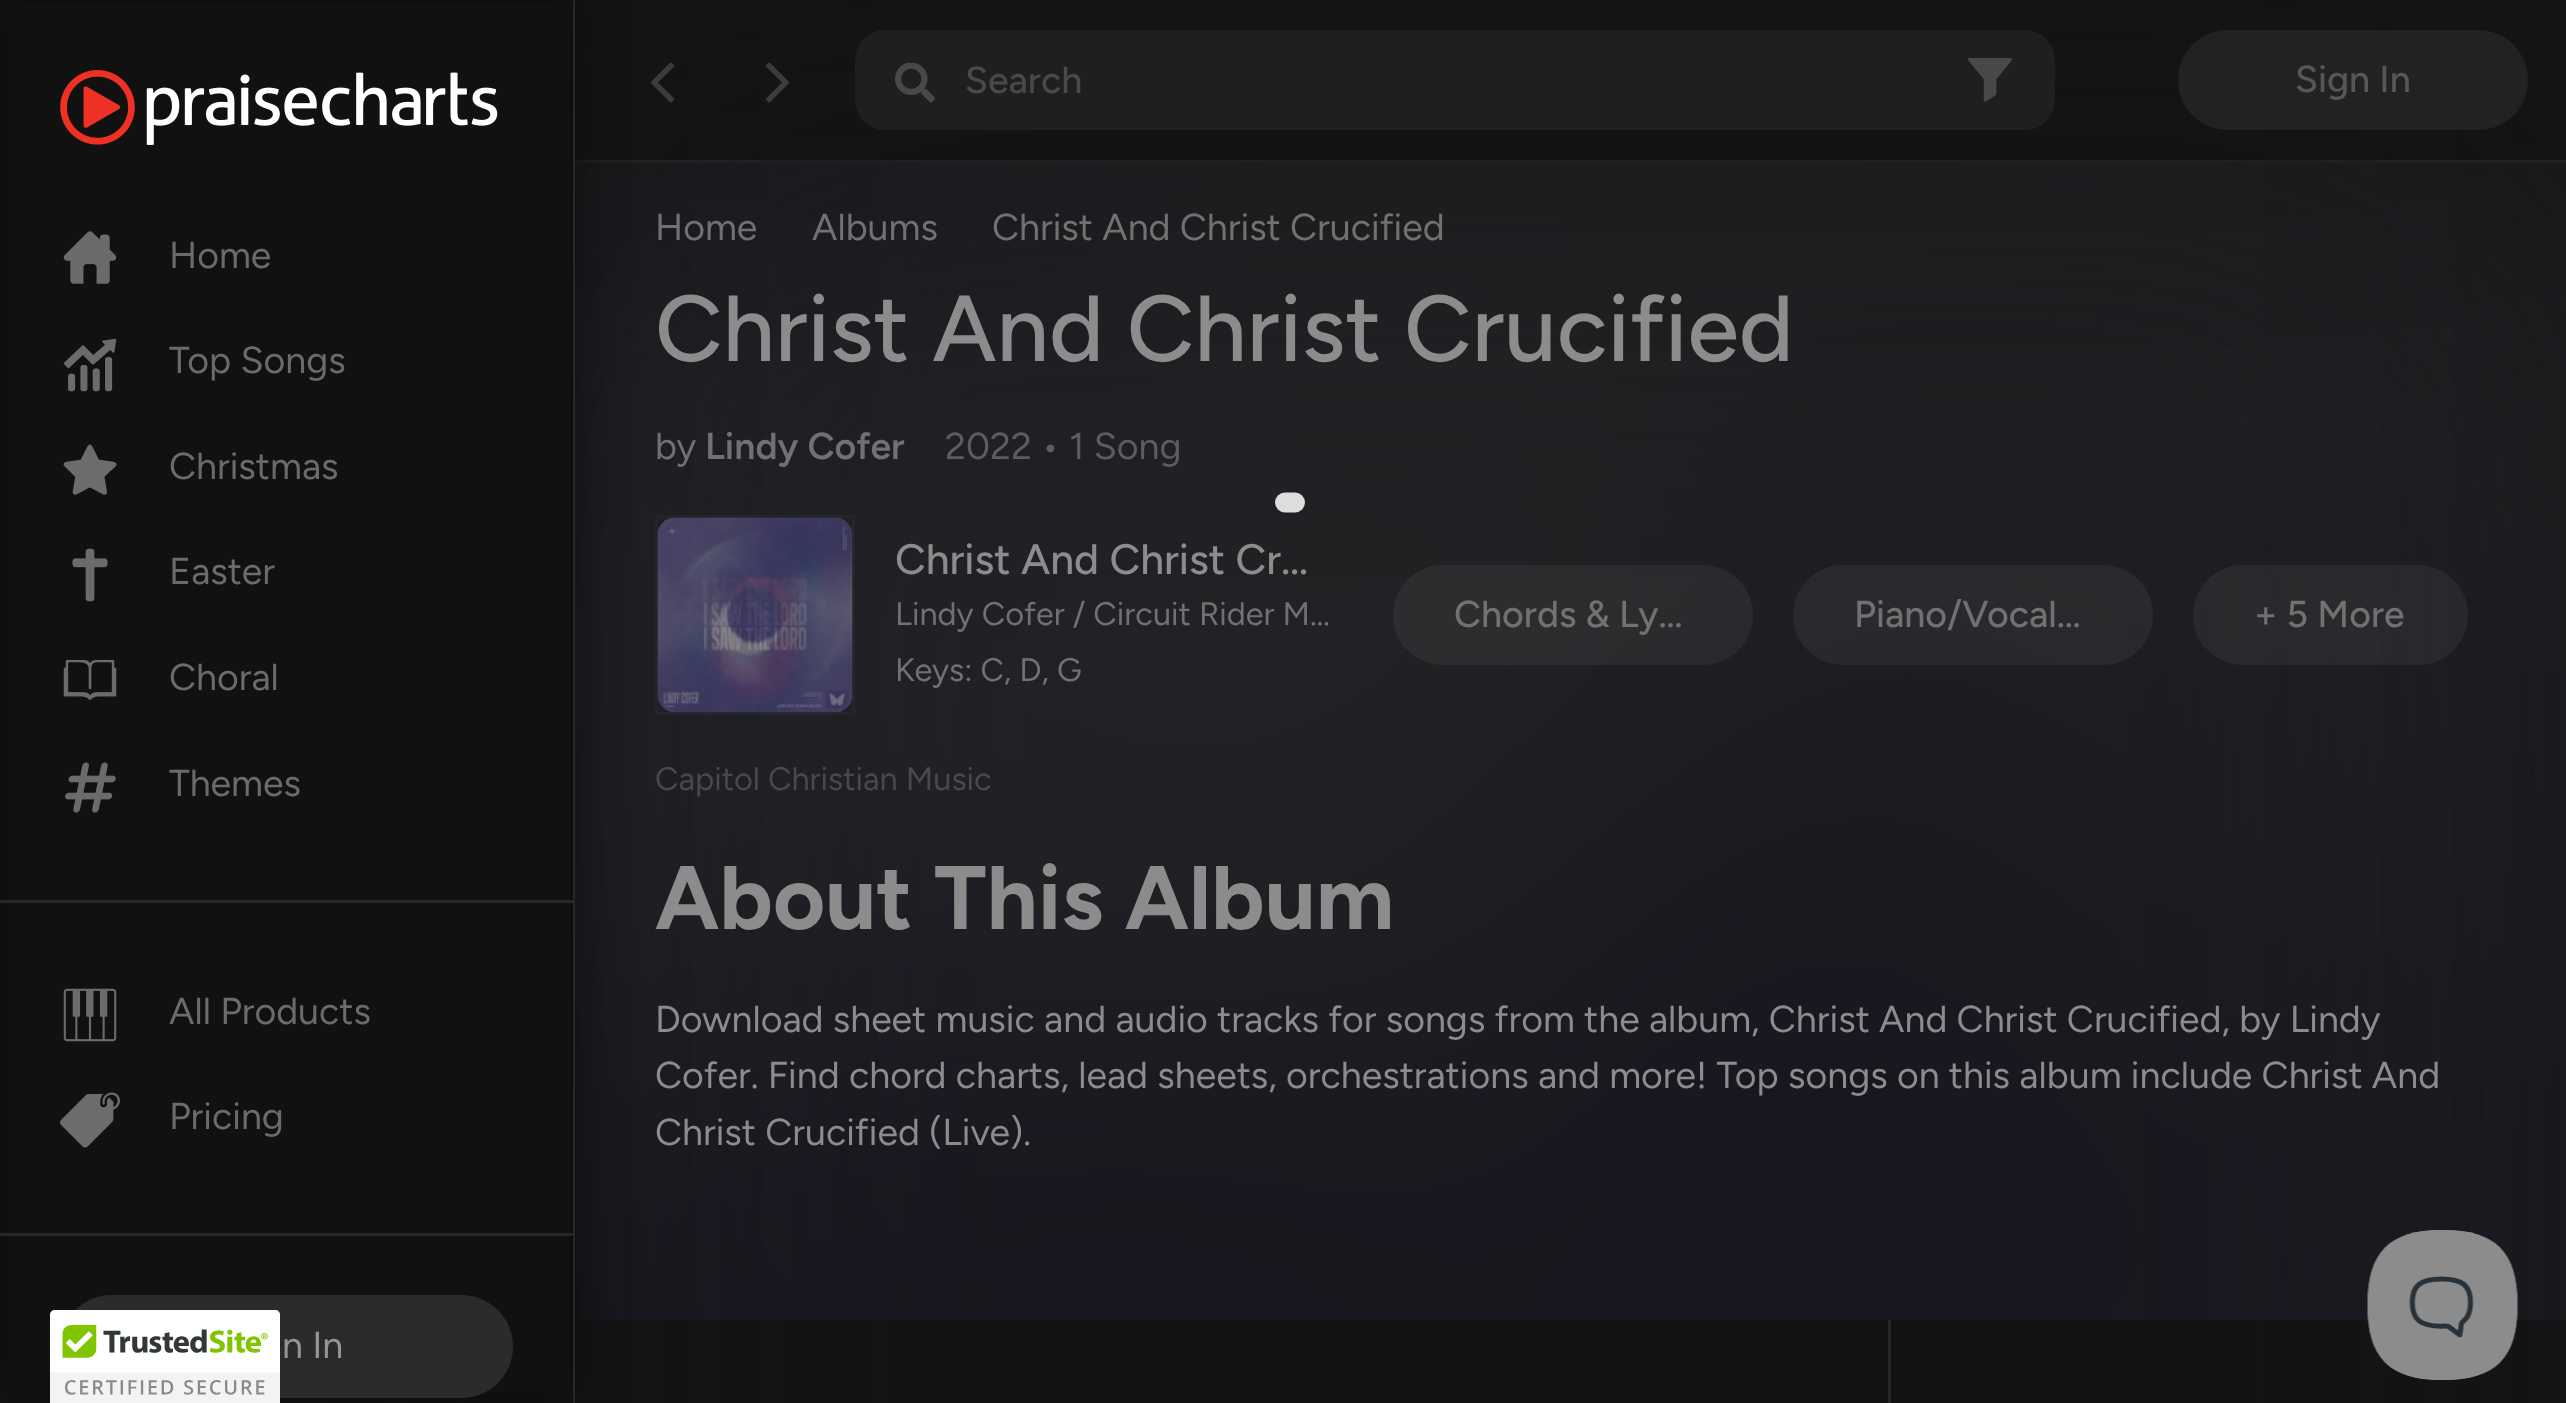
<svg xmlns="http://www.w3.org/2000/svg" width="2566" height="1403">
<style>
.a{font:37.5px Figtree;fill:#6b6b6b}
.b{font:37.5px Figtree;fill:#959596}
.c{font:500 37.5px Figtree;fill:#49494c}
.d{font:500 37.5px Figtree;fill:#575758}
.e{font:37.5px Figtree;fill:#717172}
.f{font:500 93.5px Figtree;fill:#8c8c8c}
.g{font:600 37.5px Figtree;fill:#717172}
.h{font:37.5px Figtree;fill:#5d5c5f}
.i{font:500 42.5px Figtree;fill:#8c8c8c}
.j{font:32.5px Figtree;fill:#717172}
.k{font:500 37.5px Figtree;fill:#717172}
.l{font:32.5px Figtree;fill:#49494c}
.m{font:bold 90px Figtree;fill:#8c8c8c}
.n{font:37.5px Figtree;fill:#8c8c8c}
</style>
<rect width="100%" height="100%" fill="#151515"/>
<image href="14.png" x="575" y="163" width="1991" height="1157"/>
<path fill="#12121280" filter="blur(200px)" d="M575 43h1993v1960H575z"/>
<path fill="#202020" d="M575 160h1991v3H575z"/>
<image href="10.png" x="650" y="63" width="25" height="40"/>
<path fill="none" stroke="#8c8c8c0f" stroke-width="3" d="M656.5 516.5h197v197H656.5z"/>
<image href="15.png" x="657" y="517" width="196" height="196"/>
<path fill="#00000080" filter="blur(27.5px)" d="M0 -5h575v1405H0z"/>
<path fill="#111" d="M9 3h561v1390H9z"/>
<path fill="#272727" d="M573 0h2v1403H573z"/>
<image href="1.png" x="60" y="70" width="438" height="75"/>
<path fill="#272727" d="M0 900h573v3H0z"/>
<image href="2.png" x="63" y="231" width="54" height="53"/>
<image href="3.png" x="63" y="338" width="54" height="54"/>
<image href="4.png" x="63" y="444" width="54" height="51"/>
<image href="5.png" x="72" y="548" width="36" height="54"/>
<image href="6.png" x="63" y="660" width="54" height="40"/>
<image href="7.png" x="65" y="762" width="51" height="51"/>
<path fill="#272727" d="M0 1233h573v3H0z"/>
<image href="8.png" x="63" y="988" width="54" height="54"/>
<image href="9.png" x="60" y="1092" width="60" height="56"/>
<rect fill="#2b2b2c" x="60" y="1295" width="453" height="103" rx="51.5"/>
<image href="11.png" x="765" y="63" width="25" height="40"/>
<rect fill="#1f1f1f" x="855" y="30" width="1200" height="100" rx="30"/>
<image href="12.png" x="895" y="63" width="40" height="40"/>
<image href="13.png" x="1968" y="58" width="44" height="44"/>
<rect fill="#222223" x="2178" y="30" width="350" height="100" rx="50"/>
<rect fill="#8382851f" x="1393" y="565" width="360" height="100" rx="50"/>
<rect fill="#8382851f" x="1793" y="565" width="360" height="100" rx="50"/>
<rect fill="#8382851f" x="2193" y="565" width="275" height="100" rx="50"/>
<path fill="#272727" d="M1888 1320h3v83H1888z"/>
<path fill="none" stroke="#ddd" stroke-width="20" stroke-linecap="round" d="M1285 502.5h10"/>
<path fill="#fff" d="M55 1310h220c3 0 5 2 5 5v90h-230v-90c0-3 2-5 5-5z"/>
<image href="16.png" x="50" y="1310" width="230" height="93"/>
<image href="17.png" x="2367" y="1230" width="151" height="150"/>
<text class="a" x="169" y="268">Home</text>
<text class="a" x="169" y="373">Top Songs</text>
<text class="a" x="169" y="479">Christmas</text>
<text class="a" x="169" y="584">Easter</text>
<text class="a" x="169" y="690">Choral</text>
<text class="a" x="169" y="796">Themes</text>
<text class="a" x="169" y="1024">All Products</text>
<text class="a" x="169" y="1129">Pricing</text>
<text class="b" x="282" y="1358">n In</text>
<text class="c" x="965" y="93">Search</text>
<text class="d" x="2295" y="92">Sign In</text>
<text class="e" x="655" y="240">Home</text>
<text class="e" x="812" y="240">Albums</text>
<text class="e" x="992" y="240">Christ And Christ Crucified</text>
<text class="f" x="655" y="361">Christ And Christ Crucified</text>
<text class="e" x="655" y="459">by</text>
<text class="g" x="705" y="459">Lindy Cofer</text>
<text class="h" x="945" y="459">2022 •</text>
<text class="h" x="1069" y="459">1 Song</text>
<text class="i" x="895" y="574">Christ And Christ Cr…</text>
<text class="j" x="895" y="625">Lindy Cofer / Circuit Rider M…</text>
<text class="j" x="895" y="681">Keys: C, D, G</text>
<text class="k" x="1454" y="627">Chords &amp; Ly…</text>
<text class="k" x="1854" y="627">Piano/Vocal…</text>
<text class="k" x="2254" y="627">+ 5 More</text>
<text class="l" x="655" y="790">Capitol Christian Music</text>
<text class="m" x="655" y="929">About This Album</text>
<text class="n" x="655" y="1032">Download sheet music and audio tracks for songs from the album, Christ And Christ Crucified, by Lindy</text>
<text class="n" x="655" y="1088">Cofer. Find chord charts, lead sheets, orchestrations and more! Top songs on this album include Christ And</text>
<text class="n" x="655" y="1145">Christ Crucified (Live).</text>
</svg>
